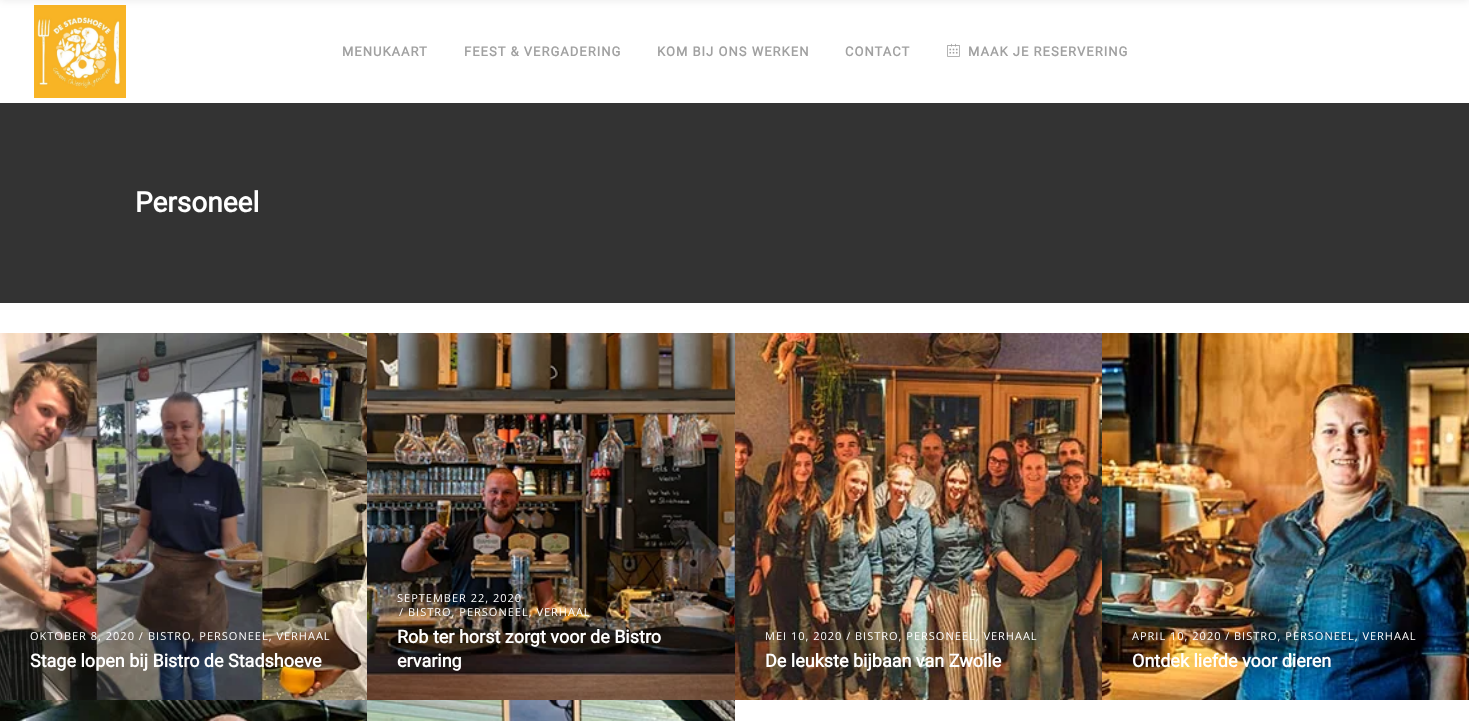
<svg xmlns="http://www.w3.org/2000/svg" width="1469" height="721">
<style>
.a{font:bold 13px Roboto;letter-spacing:1px;fill:#a1a1a1}
.b{font:bold 28px Roboto;fill:#fff}
.c{font:11px Open Sans;letter-spacing:1px;fill:#fff}
.d{font:bold 18px Roboto;fill:#fff}
</style>
<rect width="100%" height="100%" fill="#fff"/>
<image href="1.png" x="34" y="5" width="92" height="93"/>
<path fill="#00000017" filter="blur(4px)" d="M0 -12h1469v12H0z"/>
<image href="2.png" x="947" y="43" width="13" height="14"/>
<path fill="#333" d="M0 103h1469v200H0z"/>
<image href="3.png" x="0" y="333" width="367" height="367"/>
<image href="4.png" x="367" y="333" width="368" height="367"/>
<image href="5.png" x="735" y="333" width="367" height="367"/>
<image href="6.png" x="1102" y="333" width="367" height="367"/>
<image href="7.png" x="0" y="700" width="367" height="21"/>
<image href="8.png" x="367" y="700" width="368" height="21"/>
<text class="a" x="342" y="56">MENUKAART</text>
<text class="a" x="464" y="56">FEEST &amp; VERGADERING</text>
<text class="a" x="657" y="56">KOM BIJ ONS WERKEN</text>
<text class="a" x="845" y="56">CONTACT</text>
<text class="a" x="968" y="56">MAAK JE RESERVERING</text>
<text class="b" x="135" y="212">Personeel</text>
<text class="c" x="30" y="640">OKTOBER 8, 2020 /</text>
<text class="c" x="148" y="640">BISTRO, PERSONEEL, VERHAAL</text>
<text class="d" x="30" y="667">Stage lopen bij Bistro de Stadshoeve</text>
<text class="c" x="397" y="602">SEPTEMBER 22, 2020</text>
<text class="c" x="399" y="616">/</text>
<text class="c" x="408" y="616">BISTRO, PERSONEEL, VERHAAL</text>
<text class="d" x="397" y="643">Rob ter horst zorgt voor de Bistro</text>
<text class="d" x="397" y="667">ervaring</text>
<text class="c" x="765" y="640">MEI 10, 2020 /</text>
<text class="c" x="855" y="640">BISTRO, PERSONEEL, VERHAAL</text>
<text class="d" x="765" y="667">De leukste bijbaan van Zwolle</text>
<text class="c" x="1132" y="640">APRIL 10, 2020 /</text>
<text class="c" x="1234" y="640">BISTRO, PERSONEEL, VERHAAL</text>
<text class="d" x="1132" y="667">Ontdek liefde voor dieren</text>
</svg>
